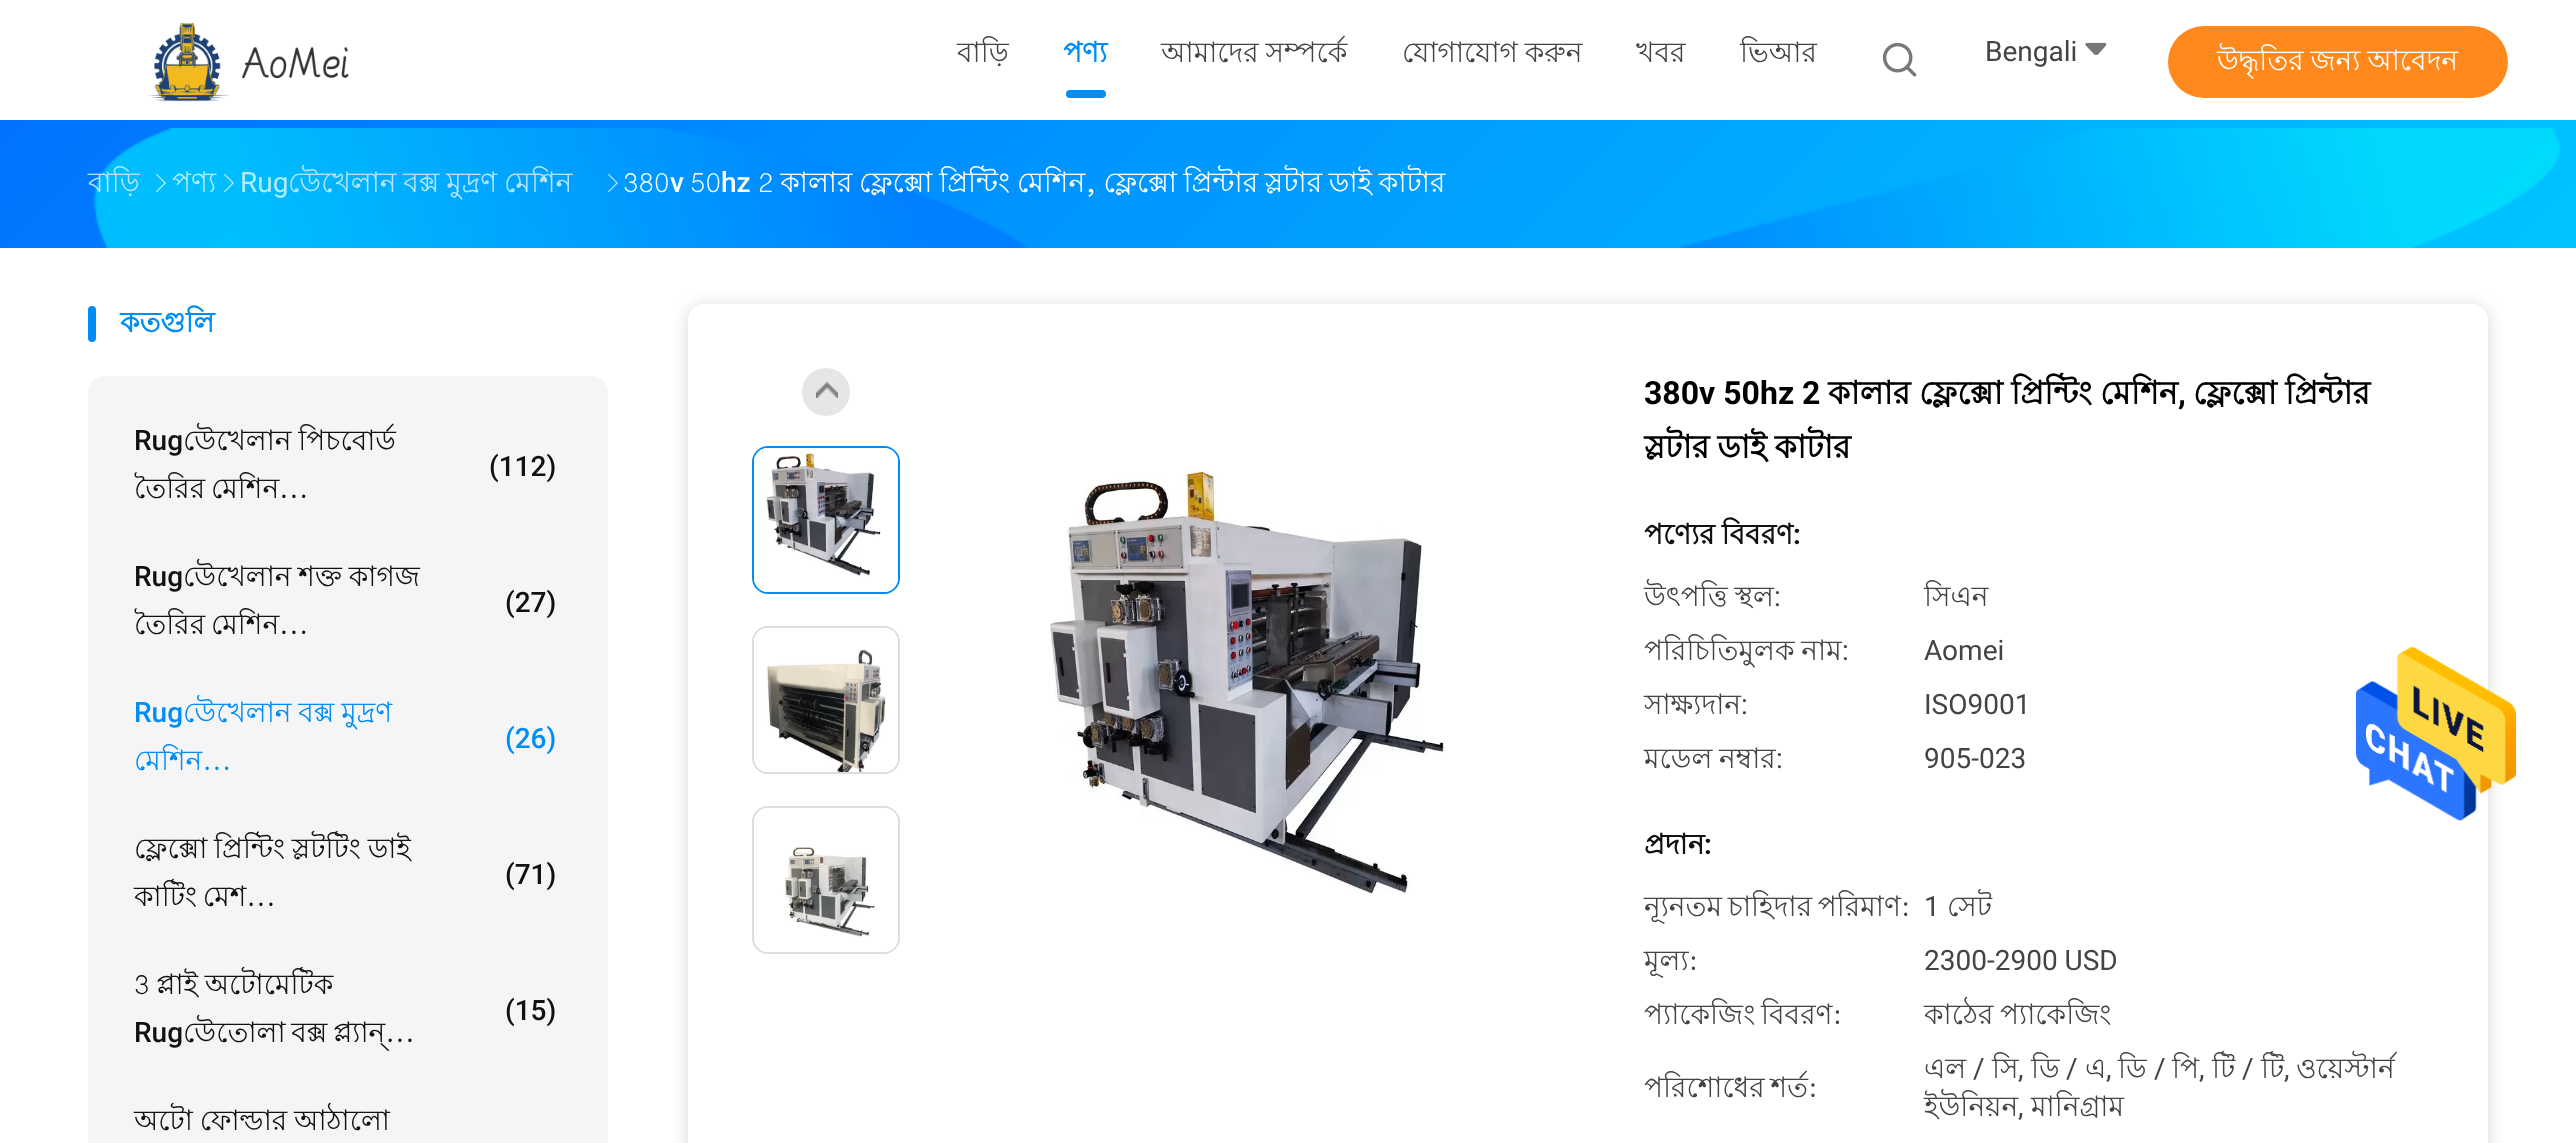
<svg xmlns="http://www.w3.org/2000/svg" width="2576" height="1143">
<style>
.a{font:28px Lohit Bengali;fill:#444}
.b{font:bold 28px Lohit Bengali;fill:#008ef6}
.c{font:28px Roboto;fill:#444}
.d{font:28px Lohit Bengali;fill:#fff}
.e{font:28px Lohit Bengali;fill:#b3e5ff}
.f{font:28px Lohit Bengali;fill:#b3ecfe}
.g{font:28px Roboto;fill:#b3ecfe}
.h{font:500 28px Roboto;fill:#fff}
.i{font:500 28px Roboto;fill:#111}
.j{font:28px Lohit Bengali;fill:#111}
.k{font:500 28px Roboto;fill:#008ef6}
.l{font:28px Lohit Bengali;fill:#008ef6}
.m{font:bold 32px Roboto;fill:#000}
.n{font:bold 32px Lohit Bengali;fill:#000}
.o{font:bold 28px Lohit Bengali;fill:#111}
.p{font:bold 28px Roboto;fill:#111}
</style>
<defs>
<linearGradient id="g1" gradientUnits="userSpaceOnUse" x1="612" y1="-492" x2="1964" y2="860"><stop offset="0" stop-color="#0073ff"/><stop offset="1" stop-color="#00c4ff"/></linearGradient>
<clipPath id="clip1"><path d="M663 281h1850v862h-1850zm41 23h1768c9 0 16 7 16 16v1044c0 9-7 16-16 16h-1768c-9 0-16-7-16-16v-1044c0-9 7-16 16-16z" clip-rule="evenodd"/></clipPath>
</defs>
<rect width="100%" height="100%" fill="#fff"/>
<image href="1.png" x="146" y="22" width="203" height="80"/>
<rect fill="#008ef6" x="1066" y="90" width="40" height="8" rx="4"/>
<image href="2.png" x="1882" y="42" width="35" height="35"/>
<image href="3.png" x="2085" y="42" width="22" height="13"/>
<rect fill="#ff891c" x="2168" y="26" width="340" height="72" rx="36"/>
<path fill="url(#g1)" d="M0 120h2576v128H0z"/>
<image href="4.png" x="94" y="128" width="934" height="120"/>
<image href="5.png" x="1679" y="128" width="881" height="120"/>
<image href="6.png" x="156" y="173" width="10" height="20"/>
<image href="7.png" x="224" y="173" width="10" height="20"/>
<image href="8.png" x="608" y="173" width="10" height="20"/>
<rect fill="#008ef6" x="88" y="306" width="8" height="36" rx="4"/>
<rect fill="#f5f5f5" x="88" y="376" width="520" height="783" rx="16"/>
<g clip-path="url(#clip1)">
<rect fill="#00000029" filter="blur(8px)" x="688" y="306" width="1800" height="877" rx="16"/>
</g>
<circle fill="#e6e6e6" cx="826" cy="392" r="24"/>
<image href="9.png" x="816" y="382" width="22" height="16"/>
<rect fill="none" stroke="#008ef6" stroke-width="2" x="753" y="447" width="146" height="146" rx="15"/>
<image href="10.png" x="754" y="448" width="144" height="144"/>
<rect fill="none" stroke="#ddd" stroke-width="2" x="753" y="627" width="146" height="146" rx="15"/>
<image href="11.png" x="754" y="628" width="144" height="144"/>
<rect fill="none" stroke="#ddd" stroke-width="2" x="753" y="807" width="146" height="146" rx="15"/>
<image href="12.png" x="754" y="808" width="144" height="144"/>
<image href="13.png" x="1050" y="469" width="395" height="425"/>
<image href="14.png" x="2356" y="646" width="160" height="175"/>
<text class="a" x="957" y="62">বাড়ি</text>
<text class="b" x="1063" y="62">পণ্য</text>
<text class="a" x="1161" y="62" word-spacing="-1">আমাদের সম্পর্কে</text>
<text class="a" x="1402" y="62" word-spacing="-1">যোগাযোগ করুন</text>
<text class="a" x="1636" y="62">খবর</text>
<text class="a" x="1740" y="62">ভিআর</text>
<text class="c" x="1985" y="61">Bengali</text>
<text class="d" x="2217" y="70" word-spacing="-1">উদ্ধৃতির জন্য আবেদন</text>
<text class="e" x="88" y="192">বাড়ি</text>
<text class="f" x="172" y="192">পণ্য</text>
<text class="g" x="240" y="192">Rug</text>
<text class="e" x="288" y="192" word-spacing="-1">েউখেলান বক্স মুদ্রণ মেশিন</text>
<text class="d" x="623" y="192">380</text>
<text class="h" x="670" y="192">v</text>
<text class="d" x="690" y="192">50</text>
<text class="h" x="721" y="192">hz</text>
<text class="d" x="758" y="192" word-spacing="-1">2 কালার ফ্লেক্সো প্রিন্টিং মেশিন, ফ্লেক্সো প্রিন্টার স্লটার ডাই কাটার</text>
<text class="b" x="120" y="332">কতগুলি</text>
<text class="i" x="134" y="450">Rug</text>
<text class="j" x="183" y="450" word-spacing="-1">েউখেলান পিচবোর্ড</text>
<text class="j" x="134" y="498" word-spacing="-2">তৈরির মেশিন...</text>
<text class="i" x="489" y="476">(112)</text>
<text class="i" x="134" y="586">Rug</text>
<text class="j" x="183" y="586" word-spacing="-1">েউখেলান শক্ত কাগজ</text>
<text class="j" x="134" y="634" word-spacing="-2">তৈরির মেশিন...</text>
<text class="i" x="505" y="612">(27)</text>
<text class="k" x="134" y="722">Rug</text>
<text class="l" x="183" y="722" word-spacing="-1">েউখেলান বক্স মুদ্রণ</text>
<text class="l" x="134" y="770">মেশিন...</text>
<text class="k" x="505" y="748">(26)</text>
<text class="j" x="134" y="858" word-spacing="-1">ফ্লেক্সো প্রিন্টিং স্লটটিং ডাই</text>
<text class="j" x="134" y="906" word-spacing="-2">কাটিং মেশ...</text>
<text class="i" x="505" y="884">(71)</text>
<text class="j" x="134" y="994" word-spacing="-1">3 প্লাই অটোমেটিক</text>
<text class="i" x="134" y="1042">Rug</text>
<text class="j" x="183" y="1042" word-spacing="-2">েউতোলা বক্স প্ল্যান্...</text>
<text class="i" x="505" y="1020">(15)</text>
<text class="j" x="134" y="1130" word-spacing="-1">অটো ফোল্ডার আঠালো</text>
<text class="m" x="1644" y="404">380v 50hz 2</text>
<text class="n" x="1828" y="404">কালার</text>
<text class="n" x="1919" y="404">ফ্লেক্সো</text>
<text class="n" x="2011" y="404">প্রিন্টিং</text>
<text class="n" x="2100" y="404">মেশিন</text>
<text class="m" x="2178" y="404">,</text>
<text class="n" x="2193" y="404">ফ্লেক্সো</text>
<text class="n" x="2285" y="404">প্রিন্টার</text>
<text class="n" x="1644" y="458" word-spacing="-1">স্লটার ডাই কাটার</text>
<text class="o" x="1644" y="544" word-spacing="-1">পণ্যের বিবরণ</text>
<text class="p" x="1793" y="544">:</text>
<text class="a" x="1644" y="606" word-spacing="-1">উৎপত্তি স্থল</text>
<text class="c" x="1774" y="606">:</text>
<text class="a" x="1924" y="606">সিএন</text>
<text class="a" x="1644" y="660" word-spacing="-1">পরিচিতিমুলক নাম</text>
<text class="c" x="1842" y="660">:</text>
<text class="c" x="1924" y="660">Aomei</text>
<text class="a" x="1644" y="714">সাক্ষ্যদান</text>
<text class="c" x="1741" y="714">:</text>
<text class="c" x="1924" y="714">ISO9001</text>
<text class="a" x="1644" y="768" word-spacing="-1">মডেল নম্বার</text>
<text class="c" x="1776" y="768">:</text>
<text class="c" x="1924" y="768">905-023</text>
<text class="o" x="1644" y="854">প্রদান</text>
<text class="p" x="1704" y="854">:</text>
<text class="a" x="1644" y="916" word-spacing="-2">ন্যূনতম চাহিদার পরিমাণ:</text>
<text class="c" x="1924" y="916">1</text>
<text class="a" x="1947" y="916">সেট</text>
<text class="a" x="1644" y="970">মূল্য:</text>
<text class="c" x="1924" y="970">2300-2900 USD</text>
<text class="a" x="1644" y="1024" word-spacing="-2">প্যাকেজিং বিবরণ:</text>
<text class="a" x="1924" y="1024" word-spacing="-1">কাঠের প্যাকেজিং</text>
<text class="a" x="1644" y="1097" word-spacing="-2">পরিশোধের শর্ত:</text>
<text class="a" x="1924" y="1078">এল</text>
<text class="c" x="1973" y="1078">/</text>
<text class="a" x="1992" y="1078">সি</text>
<text class="c" x="2018" y="1078">,</text>
<text class="a" x="2031" y="1078">ডি</text>
<text class="c" x="2066" y="1078">/</text>
<text class="a" x="2085" y="1078">এ</text>
<text class="c" x="2106" y="1078">,</text>
<text class="a" x="2118" y="1078">ডি</text>
<text class="c" x="2154" y="1078">/</text>
<text class="a" x="2172" y="1078">পি</text>
<text class="c" x="2199" y="1078">,</text>
<text class="a" x="2212" y="1078">টি</text>
<text class="c" x="2242" y="1078">/</text>
<text class="a" x="2261" y="1078">টি</text>
<text class="c" x="2284" y="1078">,</text>
<text class="a" x="2296" y="1078">ওয়েস্টার্ন</text>
<text class="a" x="1924" y="1116">ইউনিয়ন</text>
<text class="c" x="2018" y="1116">,</text>
<text class="a" x="2031" y="1116">মানিগ্রাম</text>
</svg>
